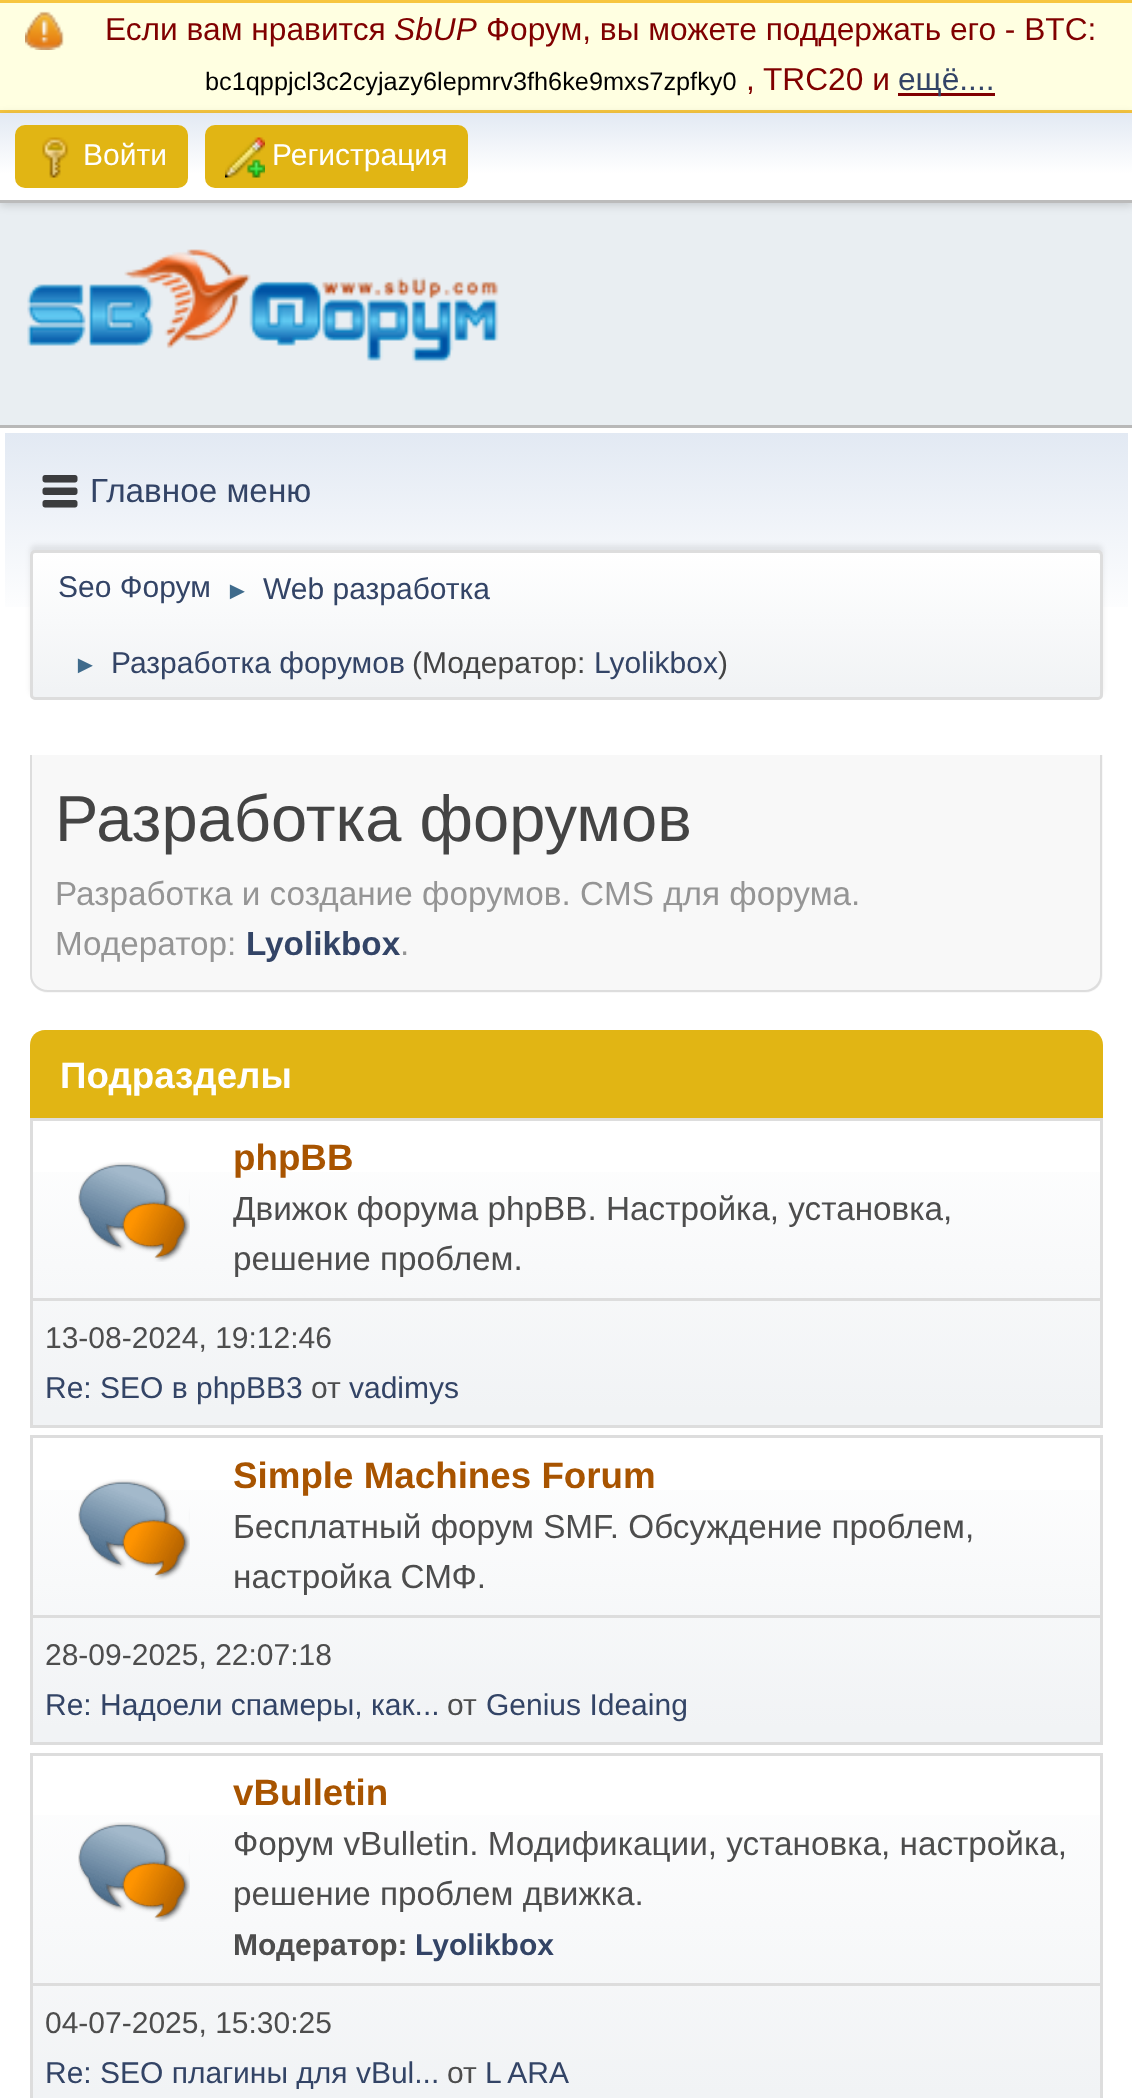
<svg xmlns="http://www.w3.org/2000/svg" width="1132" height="2098">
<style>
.a{font:31.7px Liberation Sans;fill:#800000}
.b{font:italic 31.7px Liberation Sans;fill:#800000}
.c{font:25.3px Liberation Sans;fill:#000}
.d{font:31.7px Liberation Sans;fill:#346}
.e{font:30px Liberation Sans;fill:#fff}
.f{font:33.3px Liberation Sans;fill:#346}
.g{font:30px Liberation Sans;fill:#346}
.h{font:25px Liberation Sans;fill:#3f6b8c}
.i{font:30px Liberation Sans;fill:#444}
.j{font:65px Liberation Sans;fill:#444}
.k{font:33.3px Liberation Sans;fill:#959595}
.l{font:bold 33.3px Liberation Sans;fill:#346}
.m{font:bold 36.75px Liberation Sans;fill:#fff}
.n{font:bold 36.75px Liberation Sans;fill:#a85400}
.o{font:33.3px Liberation Sans;fill:#4d4d4d}
.p{font:30px Liberation Sans;fill:#4d4d4d}
.q{font:bold 30px Liberation Sans;fill:#4d4d4d}
.r{font:bold 30px Liberation Sans;fill:#346}
</style>
<defs>
<linearGradient id="g1" gradientUnits="userSpaceOnUse" x1="566" y1="112" x2="566" y2="200"><stop offset="0" stop-color="#e2e9f3"/><stop offset="0.7" stop-color="#fff"/></linearGradient>
<linearGradient id="g2" gradientUnits="userSpaceOnUse" x1="566" y1="432" x2="566" y2="705"><stop offset="0" stop-color="#e2e9f3"/><stop offset="0.7" stop-color="#fff"/></linearGradient>
<clipPath id="clip1"><rect x="30" y="550" width="1073" height="150" rx="5"/></clipPath>
<linearGradient id="g3" gradientUnits="userSpaceOnUse" x1="566" y1="552" x2="566" y2="698"><stop offset="0" stop-color="#fff"/><stop offset="0.95" stop-color="#f1f3f5"/></linearGradient>
<linearGradient id="g4" gradientUnits="userSpaceOnUse" x1="566" y1="1120" x2="566" y2="1425"><stop offset="0" stop-color="#fff"/><stop offset="0.95" stop-color="#f1f3f5"/></linearGradient>
<linearGradient id="g5" gradientUnits="userSpaceOnUse" x1="566" y1="1438" x2="566" y2="1743"><stop offset="0" stop-color="#fff"/><stop offset="0.95" stop-color="#f1f3f5"/></linearGradient>
<linearGradient id="g6" gradientUnits="userSpaceOnUse" x1="566" y1="1755" x2="566" y2="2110"><stop offset="0" stop-color="#fff"/><stop offset="0.95" stop-color="#f1f3f5"/></linearGradient>
<clipPath id="clip2"><path d="M233 1120h867v178H233z"/></clipPath>
</defs>
<rect width="100%" height="100%" fill="#e9eef2"/>
<path fill="#ffffe1" d="M0 3h1132v107H0z"/>
<path fill="#f7c640" d="M0 0h1132v3H0z"/>
<path fill="#f7c640" d="M0 110h1132v3H0z"/>
<image href="1.png" x="25" y="11" width="39" height="39"/>
<path fill="#800000" d="M898 93h97v3H898z"/>
<path fill="#00000029" filter="blur(5px)" d="M0 115h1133v90H0z"/>
<path fill="url(#g1)" d="M0 113h1132v87H0z"/>
<path fill="#bbb" d="M0 200h1132v3H0z"/>
<rect fill="#e1b514" stroke="#e1b514" stroke-width="3" x="16.5" y="126.5" width="170" height="60" rx="8.5"/>
<image href="2.png" x="42" y="137" width="27" height="41"/>
<rect fill="#e1b514" stroke="#e1b514" stroke-width="3" x="206.5" y="126.5" width="260" height="60" rx="8.5"/>
<image href="3.png" x="225" y="137" width="40" height="41"/>
<image href="4.png" x="27" y="249" width="472" height="114"/>
<path fill="#fff" d="M0 428h1132v1670H0z"/>
<path fill="#b8b8b8" d="M0 425h1132v3H0z"/>
<path fill="url(#g2)" d="M5 433h1123v174H5z"/>
<image href="5.png" x="42" y="475" width="36" height="33"/>
<rect fill="#00000014" filter="blur(2.5px)" x="30" y="545" width="1073" height="150" rx="5"/>
<g clip-path="url(#clip1)">
<path fill="url(#g3)" d="M30 553h1073v145H30z"/>
</g>
<rect fill="none" stroke="#ddd" stroke-width="3" x="31.5" y="551.5" width="1070" height="147" rx="3.5"/>
<path fill="#f8f8f8" d="M30 755h1073v220c0 10-8 18-18 18h-1037c-10 0-18-8-18-18z"/>
<path fill="#ddd" fill-rule="evenodd" d="M30 755h1072v220c0 10-7 17-17 17h-1037c-10 0-18-7-18-17zm2 0h1068v220c0 8-7 15-15 15h-1037c-9 0-16-7-16-15z"/>
<path fill="#e1b514" d="M45 1030h1043c8.5 0 15 6.5 15 15v73h-1073v-73c0-8.5 6.5-15 15-15z"/>
<path fill="url(#g4)" d="M33 1172h1067v253H33z"/>
<path fill="none" stroke="#ddd" stroke-width="3" d="M31.5 1119.5h1070v307H31.5z"/>
<image href="6.png" x="78" y="1162" width="112" height="100"/>
<path fill="#ddd" d="M33 1298h1067v3H33z"/>
<path fill="url(#g5)" d="M33 1490h1067v252H33z"/>
<path fill="none" stroke="#ddd" stroke-width="3" d="M31.5 1436.5h1070v307H31.5z"/>
<image href="7.png" x="78" y="1479" width="112" height="101"/>
<path fill="#ddd" d="M33 1615h1067v3H33z"/>
<path fill="url(#g6)" d="M33 1815h1067v283H33z"/>
<path fill="none" stroke="#ddd" stroke-width="3" d="M31.5 1754.5h1070v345H31.5z"/>
<image href="8.png" x="78" y="1822" width="112" height="100"/>
<path fill="#ddd" d="M33 1983h1067v3H33z"/>
<text class="a" x="105" y="40">Если вам нравится</text>
<text class="b" x="394" y="40">SbUP</text>
<text class="a" x="486" y="40">Форум, вы можете поддержать его - BTC:</text>
<text class="c" x="205" y="90">bc1qppjcl3c2cyjazy6lepmrv3fh6ke9mxs7zpfky0</text>
<text class="a" x="746" y="90">,</text>
<text class="a" x="763" y="90">TRC20 и</text>
<text class="d" x="898" y="90">ещё....</text>
<text class="e" x="83" y="165">Войти</text>
<text class="e" x="272" y="165">Регистрация</text>
<text class="f" x="90" y="502">Главное меню</text>
<text class="g" x="58" y="597">Seo Форум</text>
<text class="h" x="225" y="599">►</text>
<text class="g" x="263" y="599">Web разработка</text>
<text class="h" x="73" y="673">►</text>
<text class="g" x="111" y="673">Разработка форумов</text>
<text class="i" x="412" y="673">(Модератор:</text>
<text class="g" x="594" y="673">Lyolikbox</text>
<text class="i" x="718" y="673">)</text>
<text class="j" x="55" y="841">Разработка форумов</text>
<text class="k" x="55" y="905">Разработка и создание форумов. CMS для форума.</text>
<text class="k" x="55" y="955">Модератор:</text>
<text class="l" x="246" y="955">Lyolikbox</text>
<text class="k" x="400" y="955">.</text>
<text class="m" x="60" y="1088">Подразделы</text>
<text class="n" x="233" y="1170">phpBB</text>
<g clip-path="url(#clip2)">
<text class="o" x="233" y="1220">Движок форума phpBB. Настройка, установка,</text>
</g>
<text class="o" x="233" y="1270">решение проблем.</text>
<text class="p" x="45" y="1348">13-08-2024, 19:12:46</text>
<text class="g" x="45" y="1398">Re: SEO в phpBB3</text>
<text class="p" x="311" y="1398">от</text>
<text class="g" x="349" y="1398">vadimys</text>
<text class="n" x="233" y="1488">Simple Machines Forum</text>
<text class="o" x="233" y="1538">Бесплатный форум SMF. Обсуждение проблем,</text>
<text class="o" x="233" y="1588">настройка СМФ.</text>
<text class="p" x="45" y="1665">28-09-2025, 22:07:18</text>
<text class="g" x="45" y="1715">Re: Надоели спaмеры, как...</text>
<text class="p" x="447" y="1715">от</text>
<text class="g" x="486" y="1715">Genius Ideaing</text>
<text class="n" x="233" y="1805">vBulletin</text>
<text class="o" x="233" y="1855">Форум vBulletin. Модификации, установка, настройка,</text>
<text class="o" x="233" y="1905">решение проблем движка.</text>
<text class="q" x="233" y="1955">Модератор:</text>
<text class="r" x="415" y="1955">Lyolikbox</text>
<text class="p" x="45" y="2033">04-07-2025, 15:30:25</text>
<text class="g" x="45" y="2083">Re: SEO плагины для vBul...</text>
<text class="p" x="447" y="2083">от</text>
<text class="g" x="485" y="2083">L ARA</text>
</svg>
